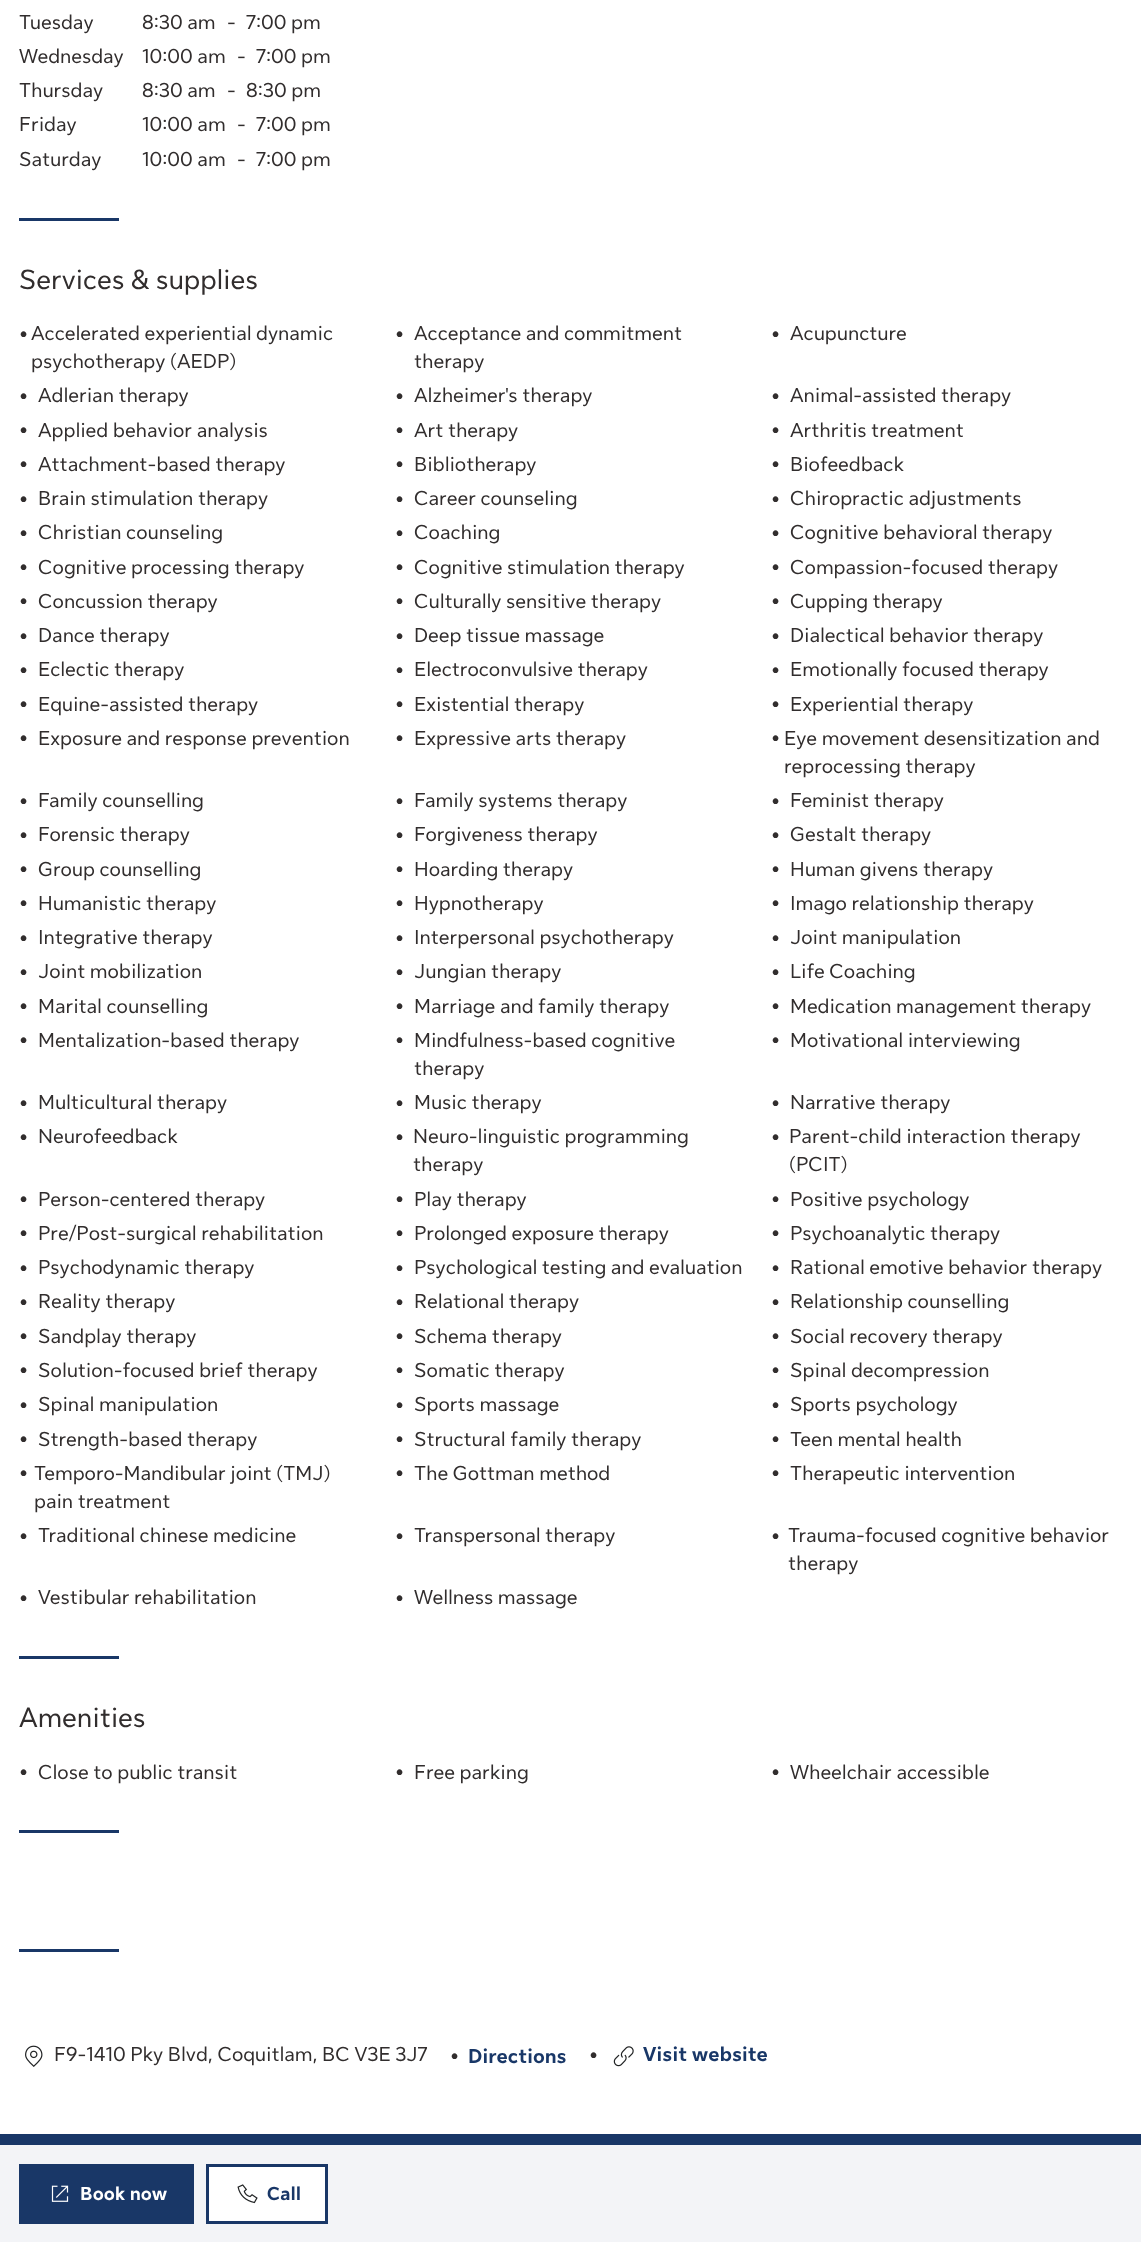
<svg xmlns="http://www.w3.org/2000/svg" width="1141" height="2242">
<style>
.a{font:20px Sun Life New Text;fill:#312d2d}
.b{font:27.5px Sun Life New Text;fill:#312d2d}
.c{font:bold 27.5px Sun Life New Text;fill:#312d2d}
.d{font:bold 20px Sun Life New Text;fill:#193767}
.e{font:bold 18.75px Sun Life New Text;fill:#fff}
.f{font:bold 18.75px Sun Life New Text;fill:#193767}
</style>
<rect width="100%" height="100%" fill="#fff"/>
<path fill="#193767" d="M19 218h100v3H19z"/>
<path fill="#193767" d="M19 1656h100v3H19z"/>
<path fill="#193767" d="M19 1830h100v3H19z"/>
<path fill="#193767" d="M19 1949h100v3H19z"/>
<image href="1.png" x="25" y="2045" width="18" height="22"/>
<image href="2.png" x="613" y="2046" width="21" height="21"/>
<path fill="#f3f4f7" d="M0 2145h1141v97H0z"/>
<path fill="#193767" d="M19 2164h175v60H19z"/>
<image href="3.png" x="51" y="2185" width="18" height="17"/>
<path fill="#fff" stroke="#193767" stroke-width="3" d="M207.5 2165.5h119v57H207.5z"/>
<image href="4.png" x="237" y="2184" width="21" height="20"/>
<path fill="#193767" d="M0 2134h1141v11H0z"/>
<text class="a" x="19" y="29">Tuesday</text>
<text class="a" x="142" y="29">8:30 am</text>
<text class="a" x="227" y="29">-</text>
<text class="a" x="246" y="29">7:00 pm</text>
<text class="a" x="19" y="63">Wednesday</text>
<text class="a" x="142" y="63">10:00 am</text>
<text class="a" x="237" y="63">-</text>
<text class="a" x="256" y="63">7:00 pm</text>
<text class="a" x="19" y="97">Thursday</text>
<text class="a" x="142" y="97">8:30 am</text>
<text class="a" x="227" y="97">-</text>
<text class="a" x="246" y="97">8:30 pm</text>
<text class="a" x="19" y="131">Friday</text>
<text class="a" x="142" y="131">10:00 am</text>
<text class="a" x="237" y="131">-</text>
<text class="a" x="256" y="131">7:00 pm</text>
<text class="a" x="19" y="166">Saturday</text>
<text class="a" x="142" y="166">10:00 am</text>
<text class="a" x="237" y="166">-</text>
<text class="a" x="256" y="166">7:00 pm</text>
<text class="b" x="19" y="289">Services &amp; supplies</text>
<text class="c" x="19" y="343">•</text>
<text class="a" x="31" y="340">Accelerated experiential dynamic</text>
<text class="a" x="31" y="368">psychotherapy (AEDP)</text>
<text class="c" x="395" y="343">•</text>
<text class="a" x="414" y="340">Acceptance and commitment</text>
<text class="a" x="414" y="368">therapy</text>
<text class="c" x="771" y="343">•</text>
<text class="a" x="790" y="340">Acupuncture</text>
<text class="c" x="19" y="405">•</text>
<text class="a" x="38" y="402">Adlerian therapy</text>
<text class="c" x="395" y="405">•</text>
<text class="a" x="414" y="402">Alzheimer's therapy</text>
<text class="c" x="771" y="405">•</text>
<text class="a" x="790" y="402">Animal-assisted therapy</text>
<text class="c" x="19" y="439">•</text>
<text class="a" x="38" y="437">Applied behavior analysis</text>
<text class="c" x="395" y="439">•</text>
<text class="a" x="414" y="437">Art therapy</text>
<text class="c" x="771" y="439">•</text>
<text class="a" x="790" y="437">Arthritis treatment</text>
<text class="c" x="19" y="473">•</text>
<text class="a" x="38" y="471">Attachment-based therapy</text>
<text class="c" x="395" y="473">•</text>
<text class="a" x="414" y="471">Bibliotherapy</text>
<text class="c" x="771" y="473">•</text>
<text class="a" x="790" y="471">Biofeedback</text>
<text class="c" x="19" y="508">•</text>
<text class="a" x="38" y="505">Brain stimulation therapy</text>
<text class="c" x="395" y="508">•</text>
<text class="a" x="414" y="505">Career counseling</text>
<text class="c" x="771" y="508">•</text>
<text class="a" x="790" y="505">Chiropractic adjustments</text>
<text class="c" x="19" y="542">•</text>
<text class="a" x="38" y="539">Christian counseling</text>
<text class="c" x="395" y="542">•</text>
<text class="a" x="414" y="539">Coaching</text>
<text class="c" x="771" y="542">•</text>
<text class="a" x="790" y="539">Cognitive behavioral therapy</text>
<text class="c" x="19" y="576">•</text>
<text class="a" x="38" y="574">Cognitive processing therapy</text>
<text class="c" x="395" y="576">•</text>
<text class="a" x="414" y="574">Cognitive stimulation therapy</text>
<text class="c" x="771" y="576">•</text>
<text class="a" x="790" y="574">Compassion-focused therapy</text>
<text class="c" x="19" y="610">•</text>
<text class="a" x="38" y="608">Concussion therapy</text>
<text class="c" x="395" y="610">•</text>
<text class="a" x="414" y="608">Culturally sensitive therapy</text>
<text class="c" x="771" y="610">•</text>
<text class="a" x="790" y="608">Cupping therapy</text>
<text class="c" x="19" y="645">•</text>
<text class="a" x="38" y="642">Dance therapy</text>
<text class="c" x="395" y="645">•</text>
<text class="a" x="414" y="642">Deep tissue massage</text>
<text class="c" x="771" y="645">•</text>
<text class="a" x="790" y="642">Dialectical behavior therapy</text>
<text class="c" x="19" y="679">•</text>
<text class="a" x="38" y="676">Eclectic therapy</text>
<text class="c" x="395" y="679">•</text>
<text class="a" x="414" y="676">Electroconvulsive therapy</text>
<text class="c" x="771" y="679">•</text>
<text class="a" x="790" y="676">Emotionally focused therapy</text>
<text class="c" x="19" y="713">•</text>
<text class="a" x="38" y="711">Equine-assisted therapy</text>
<text class="c" x="395" y="713">•</text>
<text class="a" x="414" y="711">Existential therapy</text>
<text class="c" x="771" y="713">•</text>
<text class="a" x="790" y="711">Experiential therapy</text>
<text class="c" x="19" y="747">•</text>
<text class="a" x="38" y="745">Exposure and response prevention</text>
<text class="c" x="395" y="747">•</text>
<text class="a" x="414" y="745">Expressive arts therapy</text>
<text class="c" x="771" y="747">•</text>
<text class="a" x="784" y="745">Eye movement desensitization and</text>
<text class="a" x="784" y="773">reprocessing therapy</text>
<text class="c" x="19" y="810">•</text>
<text class="a" x="38" y="807">Family counselling</text>
<text class="c" x="395" y="810">•</text>
<text class="a" x="414" y="807">Family systems therapy</text>
<text class="c" x="771" y="810">•</text>
<text class="a" x="790" y="807">Feminist therapy</text>
<text class="c" x="19" y="844">•</text>
<text class="a" x="38" y="841">Forensic therapy</text>
<text class="c" x="395" y="844">•</text>
<text class="a" x="414" y="841">Forgiveness therapy</text>
<text class="c" x="771" y="844">•</text>
<text class="a" x="790" y="841">Gestalt therapy</text>
<text class="c" x="19" y="878">•</text>
<text class="a" x="38" y="876">Group counselling</text>
<text class="c" x="395" y="878">•</text>
<text class="a" x="414" y="876">Hoarding therapy</text>
<text class="c" x="771" y="878">•</text>
<text class="a" x="790" y="876">Human givens therapy</text>
<text class="c" x="19" y="912">•</text>
<text class="a" x="38" y="910">Humanistic therapy</text>
<text class="c" x="395" y="912">•</text>
<text class="a" x="414" y="910">Hypnotherapy</text>
<text class="c" x="771" y="912">•</text>
<text class="a" x="790" y="910">Imago relationship therapy</text>
<text class="c" x="19" y="947">•</text>
<text class="a" x="38" y="944">Integrative therapy</text>
<text class="c" x="395" y="947">•</text>
<text class="a" x="414" y="944">Interpersonal psychotherapy</text>
<text class="c" x="771" y="947">•</text>
<text class="a" x="790" y="944">Joint manipulation</text>
<text class="c" x="19" y="981">•</text>
<text class="a" x="38" y="978">Joint mobilization</text>
<text class="c" x="395" y="981">•</text>
<text class="a" x="414" y="978">Jungian therapy</text>
<text class="c" x="771" y="981">•</text>
<text class="a" x="790" y="978">Life Coaching</text>
<text class="c" x="19" y="1015">•</text>
<text class="a" x="38" y="1013">Marital counselling</text>
<text class="c" x="395" y="1015">•</text>
<text class="a" x="414" y="1013">Marriage and family therapy</text>
<text class="c" x="771" y="1015">•</text>
<text class="a" x="790" y="1013">Medication management therapy</text>
<text class="c" x="19" y="1049">•</text>
<text class="a" x="38" y="1047">Mentalization-based therapy</text>
<text class="c" x="395" y="1049">•</text>
<text class="a" x="414" y="1047">Mindfulness-based cognitive</text>
<text class="a" x="414" y="1075">therapy</text>
<text class="c" x="771" y="1049">•</text>
<text class="a" x="790" y="1047">Motivational interviewing</text>
<text class="c" x="19" y="1112">•</text>
<text class="a" x="38" y="1109">Multicultural therapy</text>
<text class="c" x="395" y="1112">•</text>
<text class="a" x="414" y="1109">Music therapy</text>
<text class="c" x="771" y="1112">•</text>
<text class="a" x="790" y="1109">Narrative therapy</text>
<text class="c" x="19" y="1146">•</text>
<text class="a" x="38" y="1143">Neurofeedback</text>
<text class="c" x="395" y="1146">•</text>
<text class="a" x="413" y="1143">Neuro-linguistic programming</text>
<text class="a" x="413" y="1171">therapy</text>
<text class="c" x="771" y="1146">•</text>
<text class="a" x="789" y="1143">Parent-child interaction therapy</text>
<text class="a" x="789" y="1171">(PCIT)</text>
<text class="c" x="19" y="1208">•</text>
<text class="a" x="38" y="1206">Person-centered therapy</text>
<text class="c" x="395" y="1208">•</text>
<text class="a" x="414" y="1206">Play therapy</text>
<text class="c" x="771" y="1208">•</text>
<text class="a" x="790" y="1206">Positive psychology</text>
<text class="c" x="19" y="1242">•</text>
<text class="a" x="38" y="1240">Pre/Post-surgical rehabilitation</text>
<text class="c" x="395" y="1242">•</text>
<text class="a" x="414" y="1240">Prolonged exposure therapy</text>
<text class="c" x="771" y="1242">•</text>
<text class="a" x="790" y="1240">Psychoanalytic therapy</text>
<text class="c" x="19" y="1277">•</text>
<text class="a" x="38" y="1274">Psychodynamic therapy</text>
<text class="c" x="395" y="1277">•</text>
<text class="a" x="414" y="1274">Psychological testing and evaluation</text>
<text class="c" x="771" y="1277">•</text>
<text class="a" x="790" y="1274">Rational emotive behavior therapy</text>
<text class="c" x="19" y="1311">•</text>
<text class="a" x="38" y="1308">Reality therapy</text>
<text class="c" x="395" y="1311">•</text>
<text class="a" x="414" y="1308">Relational therapy</text>
<text class="c" x="771" y="1311">•</text>
<text class="a" x="790" y="1308">Relationship counselling</text>
<text class="c" x="19" y="1345">•</text>
<text class="a" x="38" y="1343">Sandplay therapy</text>
<text class="c" x="395" y="1345">•</text>
<text class="a" x="414" y="1343">Schema therapy</text>
<text class="c" x="771" y="1345">•</text>
<text class="a" x="790" y="1343">Social recovery therapy</text>
<text class="c" x="19" y="1379">•</text>
<text class="a" x="38" y="1377">Solution-focused brief therapy</text>
<text class="c" x="395" y="1379">•</text>
<text class="a" x="414" y="1377">Somatic therapy</text>
<text class="c" x="771" y="1379">•</text>
<text class="a" x="790" y="1377">Spinal decompression</text>
<text class="c" x="19" y="1414">•</text>
<text class="a" x="38" y="1411">Spinal manipulation</text>
<text class="c" x="395" y="1414">•</text>
<text class="a" x="414" y="1411">Sports massage</text>
<text class="c" x="771" y="1414">•</text>
<text class="a" x="790" y="1411">Sports psychology</text>
<text class="c" x="19" y="1448">•</text>
<text class="a" x="38" y="1446">Strength-based therapy</text>
<text class="c" x="395" y="1448">•</text>
<text class="a" x="414" y="1446">Structural family therapy</text>
<text class="c" x="771" y="1448">•</text>
<text class="a" x="790" y="1446">Teen mental health</text>
<text class="c" x="19" y="1482">•</text>
<text class="a" x="34" y="1480">Temporo-Mandibular joint (TMJ)</text>
<text class="a" x="34" y="1508">pain treatment</text>
<text class="c" x="395" y="1482">•</text>
<text class="a" x="414" y="1480">The Gottman method</text>
<text class="c" x="771" y="1482">•</text>
<text class="a" x="790" y="1480">Therapeutic intervention</text>
<text class="c" x="19" y="1545">•</text>
<text class="a" x="38" y="1542">Traditional chinese medicine</text>
<text class="c" x="395" y="1545">•</text>
<text class="a" x="414" y="1542">Transpersonal therapy</text>
<text class="c" x="771" y="1545">•</text>
<text class="a" x="788" y="1542">Trauma-focused cognitive behavior</text>
<text class="a" x="788" y="1570">therapy</text>
<text class="c" x="19" y="1607">•</text>
<text class="a" x="38" y="1604">Vestibular rehabilitation</text>
<text class="c" x="395" y="1607">•</text>
<text class="a" x="414" y="1604">Wellness massage</text>
<text class="b" x="19" y="1727">Amenities</text>
<text class="c" x="19" y="1781">•</text>
<text class="a" x="38" y="1779">Close to public transit</text>
<text class="c" x="395" y="1781">•</text>
<text class="a" x="414" y="1779">Free parking</text>
<text class="c" x="771" y="1781">•</text>
<text class="a" x="790" y="1779">Wheelchair accessible</text>
<text class="a" x="54" y="2061">F9-1410 Pky Blvd, Coquitlam, BC V3E 3J7</text>
<text class="c" x="450" y="2065">•</text>
<text class="d" x="468" y="2063">Directions</text>
<text class="c" x="589" y="2064">•</text>
<text class="d" x="643" y="2061">Visit website</text>
<text class="e" x="80" y="2200">Book now</text>
<text class="f" x="267" y="2200">Call</text>
</svg>
